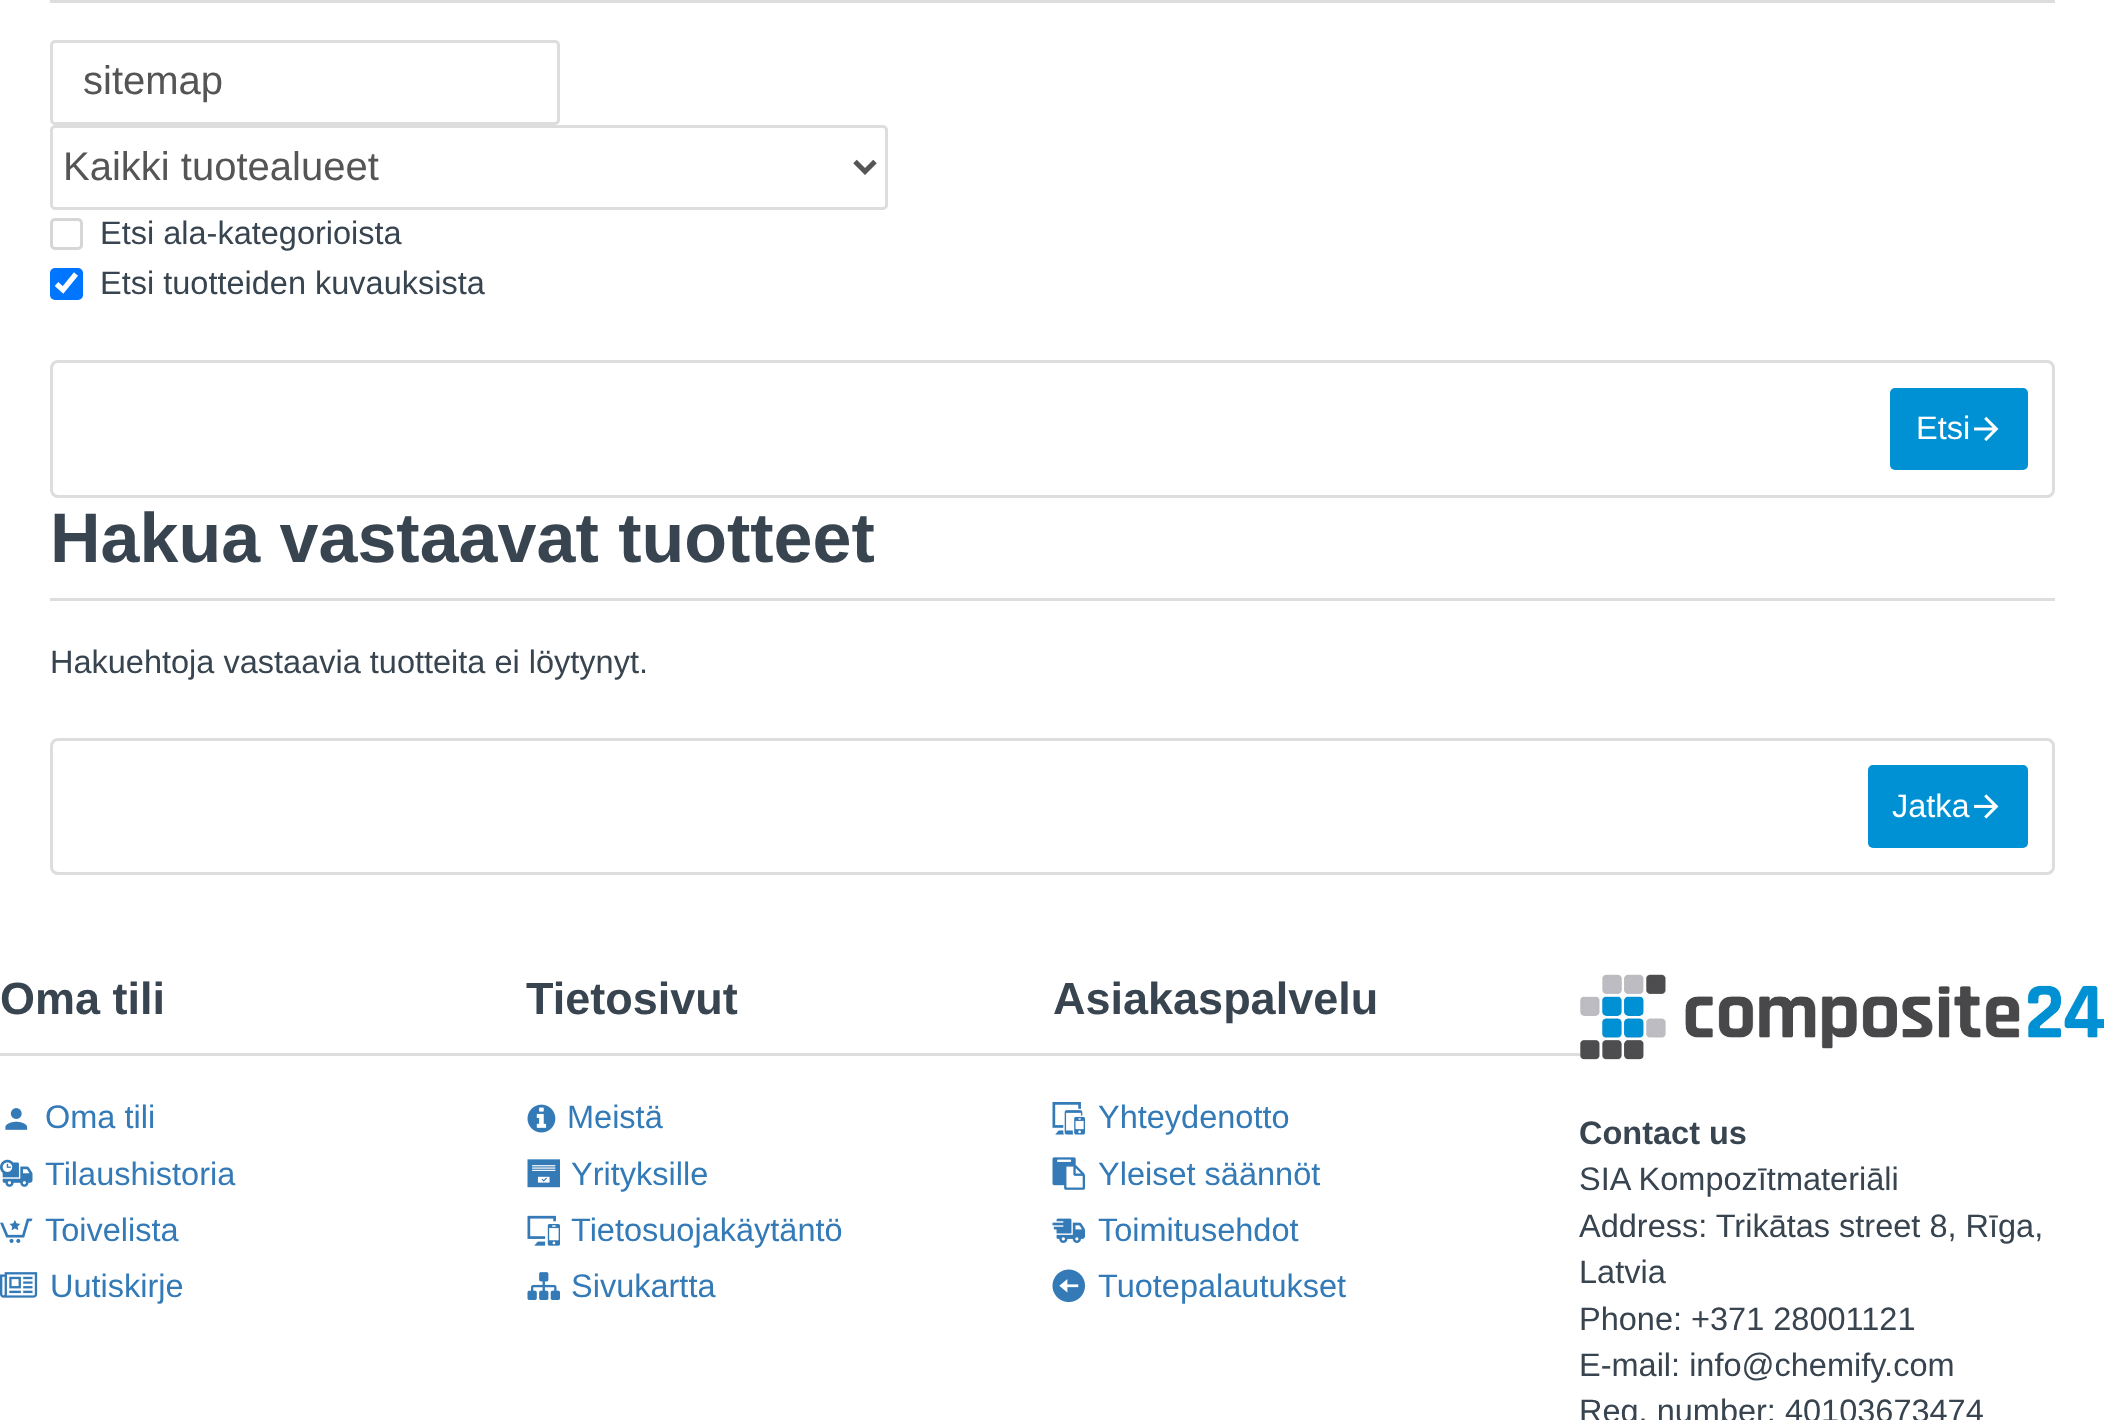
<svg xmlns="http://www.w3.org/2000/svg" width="2104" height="1420">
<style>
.a{font:40px Liberation Sans;fill:#555}
.b{font:32.5px Liberation Sans;fill:#38444f}
.c{font:32.5px Liberation Sans;fill:#fff}
.d{font:bold 70px Liberation Sans;fill:#38444f}
.e{font:bold 45px Liberation Sans;fill:#38444f}
.f{font:32.5px Liberation Sans;fill:#337ab7}
.g{font:bold 32.5px Liberation Sans;fill:#38444f}
</style>
<rect width="100%" height="100%" fill="#fff"/>
<path fill="#ddd" d="M50 0h2005v3H50z"/>
<rect fill="none" stroke="#ddd" stroke-width="3" x="51.5" y="41.5" width="507" height="82" rx="3.5"/>
<rect fill="none" stroke="#ddd" stroke-width="3" x="51.5" y="126.5" width="835" height="82" rx="3.5"/>
<path fill="none" stroke="#555" stroke-width="5" d="M855 161.5l10 10l10-10"/>
<rect fill="none" stroke="#d6d6d6" stroke-width="3" x="51.5" y="219.5" width="30" height="29" rx="3.5"/>
<rect fill="#0075ff" x="50" y="268" width="33" height="32" rx="5"/>
<path fill="none" stroke="#fff" stroke-width="5.2" d="M56.5 284l6.5 6l13-16"/>
<rect fill="none" stroke="#ddd" stroke-width="3" x="51.5" y="361.5" width="2002" height="135" rx="6.5"/>
<rect fill="#0091d4" x="1890" y="388" width="138" height="82" rx="5"/>
<image href="1.png" x="1974" y="416" width="25" height="25"/>
<path fill="#ddd" d="M50 598h2005v3H50z"/>
<rect fill="none" stroke="#ddd" stroke-width="3" x="51.5" y="739.5" width="2002" height="134" rx="6.5"/>
<rect fill="#0091d4" x="1868" y="765" width="160" height="83" rx="5"/>
<image href="2.png" x="1974" y="794" width="25" height="25"/>
<path fill="#ddd" d="M0 1053h1580v3H0z"/>
<image href="3.png" x="5" y="1108" width="23" height="22"/>
<image href="4.png" x="0" y="1159" width="33" height="28"/>
<image href="5.png" x="0" y="1218" width="33" height="25"/>
<image href="6.png" x="0" y="1272" width="38" height="26"/>
<image href="7.png" x="527" y="1104" width="29" height="29"/>
<image href="8.png" x="527" y="1159" width="33" height="29"/>
<image href="9.png" x="527" y="1215" width="33" height="31"/>
<image href="10.png" x="527" y="1272" width="33" height="28"/>
<image href="11.png" x="1052" y="1102" width="33" height="33"/>
<image href="12.png" x="1052" y="1157" width="33" height="33"/>
<image href="13.png" x="1052" y="1218" width="33" height="25"/>
<image href="14.png" x="1052" y="1269" width="33" height="33"/>
<image href="15.png" x="1580" y="974" width="524" height="86"/>
<text class="a" x="83" y="94">sitemap</text>
<text class="a" x="63" y="180">Kaikki tuotealueet</text>
<text class="b" x="100" y="244">Etsi ala-kategorioista</text>
<text class="b" x="100" y="294">Etsi tuotteiden kuvauksista</text>
<text class="c" x="1916" y="439">Etsi</text>
<text class="d" x="50" y="562">Hakua vastaavat tuotteet</text>
<text class="b" x="50" y="673">Hakuehtoja vastaavia tuotteita ei löytynyt.</text>
<text class="c" x="1892" y="817">Jatka</text>
<text class="e" x="0" y="1014">Oma tili</text>
<text class="f" x="45" y="1128">Oma tili</text>
<text class="f" x="45" y="1185">Tilaushistoria</text>
<text class="f" x="45" y="1241">Toivelista</text>
<text class="f" x="50" y="1297">Uutiskirje</text>
<text class="e" x="526" y="1014">Tietosivut</text>
<text class="f" x="567" y="1128">Meistä</text>
<text class="f" x="571" y="1185">Yrityksille</text>
<text class="f" x="571" y="1241">Tietosuojakäytäntö</text>
<text class="f" x="571" y="1297">Sivukartta</text>
<text class="e" x="1053" y="1014">Asiakaspalvelu</text>
<text class="f" x="1098" y="1128">Yhteydenotto</text>
<text class="f" x="1098" y="1185">Yleiset säännöt</text>
<text class="f" x="1098" y="1241">Toimitusehdot</text>
<text class="f" x="1098" y="1297">Tuotepalautukset</text>
<text class="g" x="1579" y="1144">Contact us</text>
<text class="b" x="1579" y="1190">SIA Kompozītmateriāli</text>
<text class="b" x="1579" y="1237">Address: Trikātas street 8, Rīga,</text>
<text class="b" x="1579" y="1283">Latvia</text>
<text class="b" x="1579" y="1330">Phone: +371 28001121</text>
<text class="b" x="1579" y="1376">E-mail: info@chemify.com</text>
<text class="b" x="1579" y="1422">Reg. number: 40103673474</text>
</svg>
